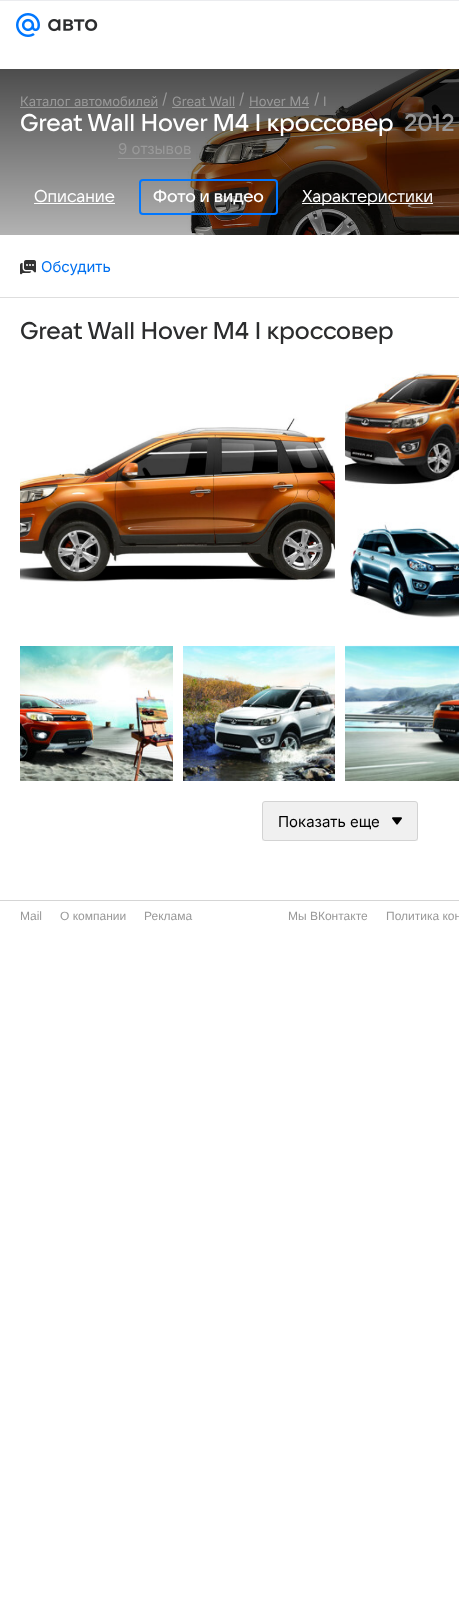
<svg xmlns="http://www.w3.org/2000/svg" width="459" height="1611">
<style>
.a{font:13px 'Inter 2';fill:#999}
.b{font:15px Inter;fill:#999}
.c{font:500 24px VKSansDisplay;fill:#fff}
.d{font:500 24px VKSansDisplay;fill:#999}
.e{font:17px VKSansDisplay;fill:#fff}
.f{font:500 17px VKSansDisplay;fill:#fff}
.g{font:15px Inter;fill:#0070f0}
.h{font:500 24px VKSansDisplay;fill:#2c2d2e}
.i{font:15px Inter;fill:#000}
.j{font:12px Liberation Sans;fill:#999}
</style>
<defs>
<clipPath id="clip1"><path d="M20 346h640v495H20z"/></clipPath>
</defs>
<rect width="100%" height="100%" fill="#fff"/>
<path fill="#ebecef" d="M0 0h459v1H0z"/>
<image href="1.png" x="16" y="13" width="24" height="24"/>
<image href="2.png" x="48" y="19" width="50" height="13"/>
<image href="3.png" x="0" y="69" width="459" height="166"/>
<path fill="#999" d="M20 107h138v1H20z"/>
<path fill="#999" d="M172 107h63v1H172z"/>
<path fill="#999" d="M249 107h60v1H249z"/>
<path fill="#999" d="M118 158h73v1H118z"/>
<path fill="#fff" d="M34 203h81v1H34z"/>
<rect fill="none" stroke="#07f" stroke-width="2" x="140" y="180" width="137" height="34" rx="3"/>
<path fill="#fff" d="M302 203h131v1H302z"/>
<path fill="#dedede" d="M0 297h459v1H0z"/>
<image href="4.png" x="20" y="260" width="16" height="15"/>
<image href="5.png" x="20" y="356" width="315" height="280"/>
<image href="6.png" x="345" y="356" width="114" height="135"/>
<image href="7.png" x="345" y="501" width="114" height="135"/>
<image href="8.png" x="20" y="646" width="153" height="135"/>
<image href="9.png" x="183" y="646" width="152" height="135"/>
<image href="10.png" x="345" y="645" width="114" height="136"/>
<g clip-path="url(#clip1)">
<path fill="#f5f5f5" d="M262 838v2c0 2 1 3 3 3h150c2 0 3-1 3-3v-2l-1 2l-1 1h-151c-2 0-3-1-3-3z"/>
</g>
<rect fill="#f0f0f0" stroke="#d3d3d3" x="262.5" y="801.5" width="155" height="39" rx="2.5"/>
<image href="11.png" x="392" y="817" width="10" height="8"/>
<path fill="#d5d5d5" d="M0 900h459v1H0z"/>
<text class="a" x="20" y="106">Каталог автомобилей</text>
<text class="b" x="162" y="104">/</text>
<text class="a" x="172" y="106">Great Wall</text>
<text class="b" x="239" y="104">/</text>
<text class="a" x="249" y="106">Hover M4</text>
<text class="b" x="314" y="104">/</text>
<text class="a" x="323" y="106">I</text>
<text class="c" x="20" y="131">Great Wall Hover M4 I кроссовер</text>
<text class="d" x="404" y="131">2012</text>
<text class="b" x="118" y="154">9 отзывов</text>
<text class="e" x="34" y="202">Описание</text>
<text class="f" x="153" y="202">Фото и видео</text>
<text class="e" x="302" y="202">Характеристики</text>
<text class="g" x="41" y="272">Обсудить</text>
<text class="h" x="20" y="339">Great Wall Hover M4 I кроссовер</text>
<text class="i" x="278" y="827">Показать еще</text>
<text class="j" x="20" y="920">Mail</text>
<text class="j" x="60" y="920">О компании</text>
<text class="j" x="144" y="920">Реклама</text>
<text class="j" x="288" y="920">Мы ВКонтакте</text>
<text class="j" x="386" y="920">Политика кон</text>
</svg>
